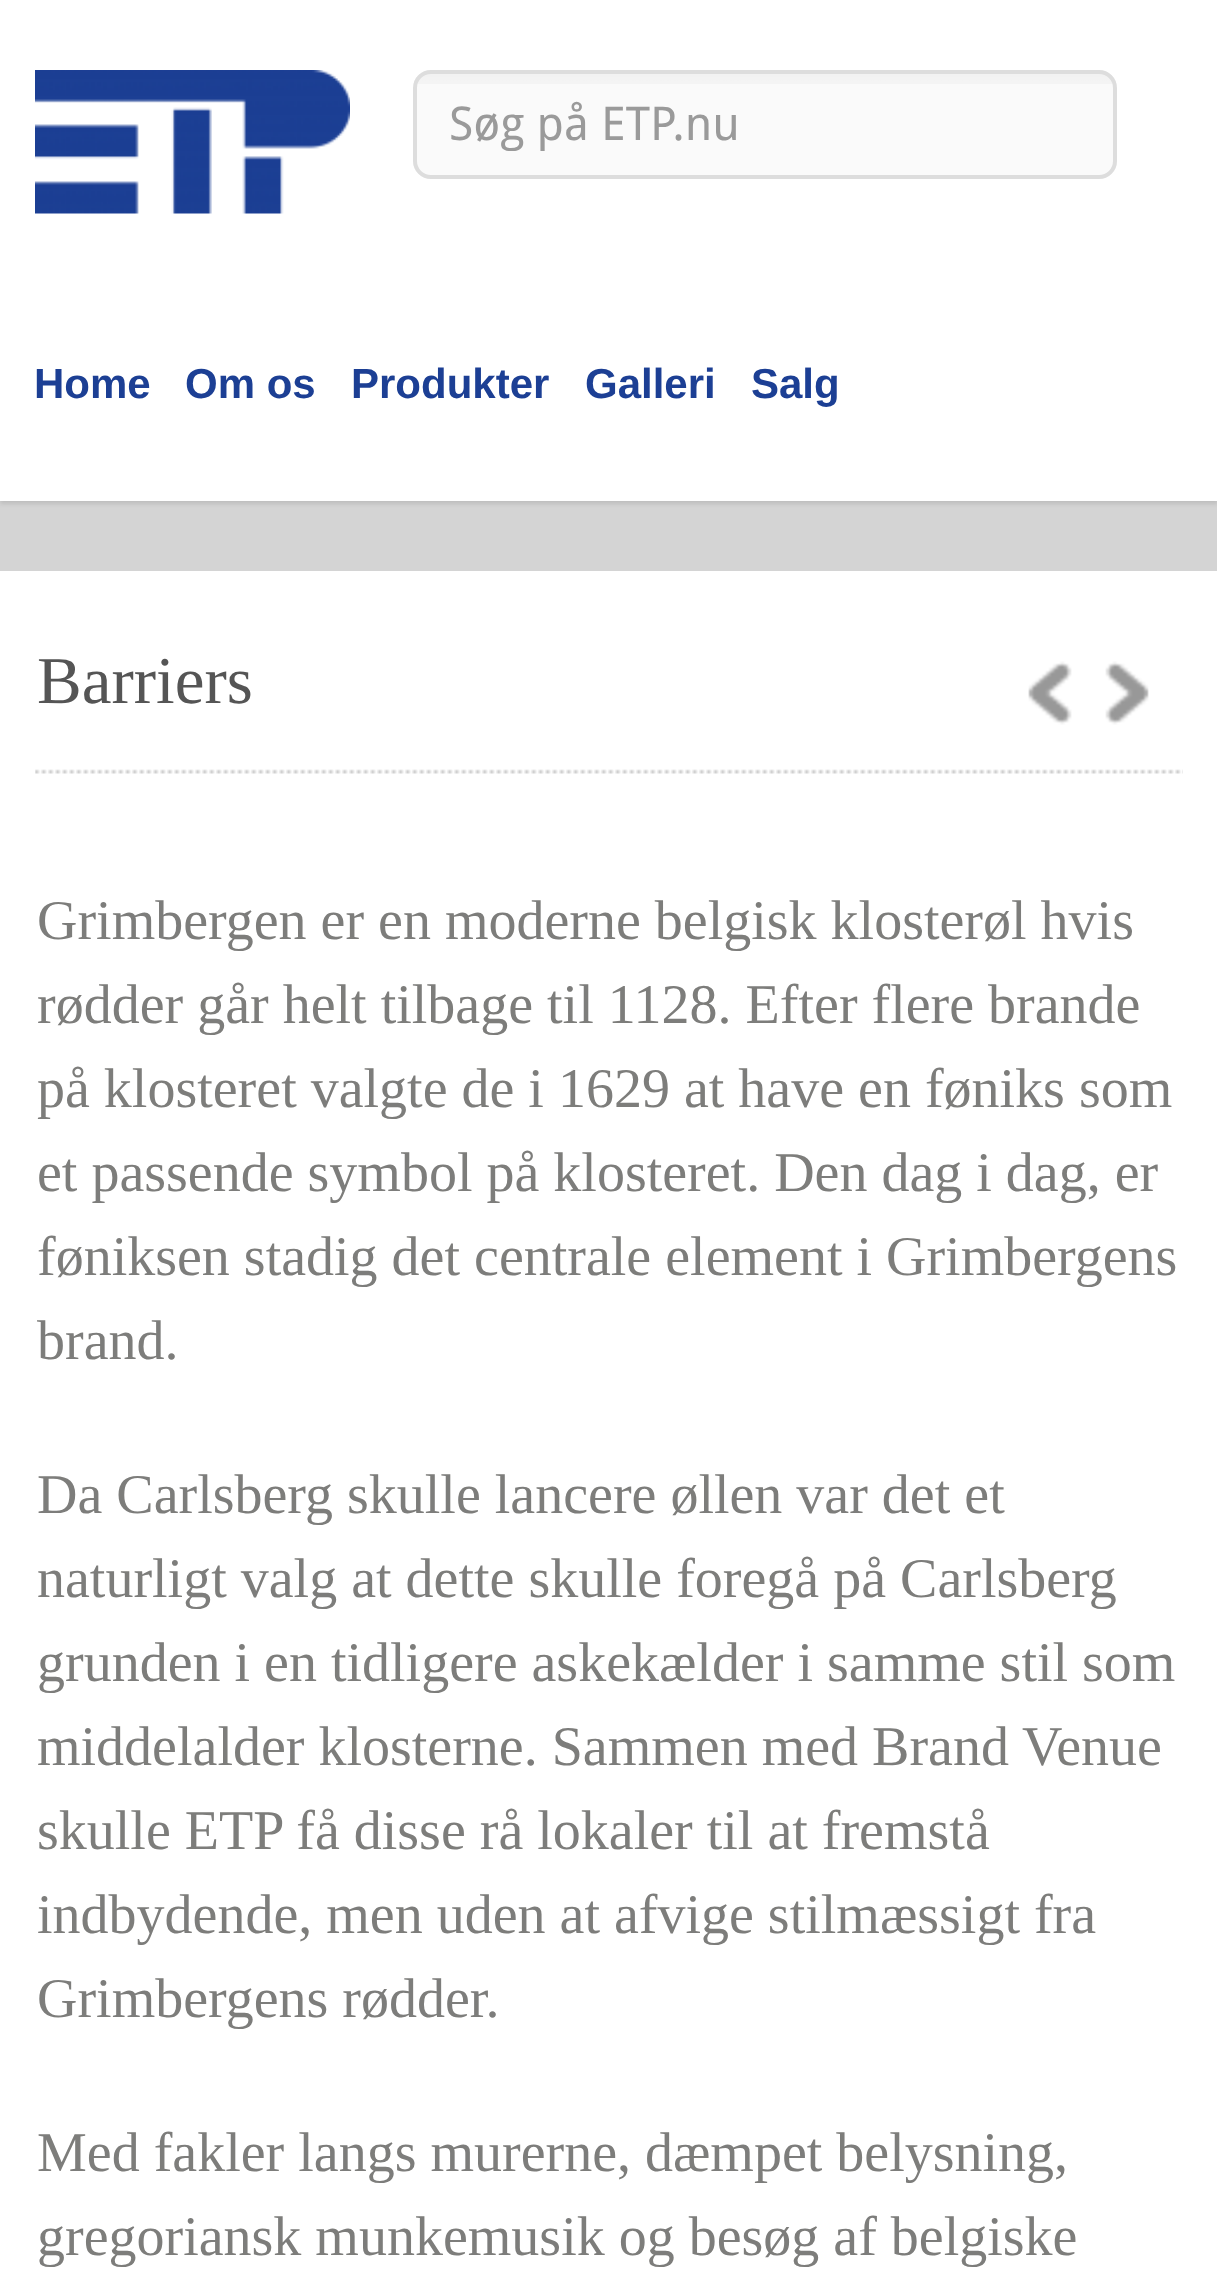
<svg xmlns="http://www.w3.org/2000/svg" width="1217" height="2272">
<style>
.a{font:46.75px Droid Sans;fill:#9a9a9a}
.b{font:bold 42px Liberation Sans;fill:#1c3f94}
.c{font:67px Liberation Serif;fill:#555}
.d{font:56px Liberation Serif;fill:#7d7d7b}
</style>
<defs>
<clipPath id="clip1"><path d="M448 98h630v53H448z"/></clipPath>
</defs>
<rect width="100%" height="100%" fill="#d4d4d4"/>
<path fill="#0000001a" filter="blur(2px)" d="M0 4h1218v500H0z"/>
<path fill="#fff" d="M0 0h1217v501H0z"/>
<image href="1.png" x="35" y="70" width="315" height="144"/>
<rect fill="#fafafa" x="413" y="70" width="704" height="109" rx="18"/>
<image href="2.png" x="414" y="74" width="699" height="10"/>
<rect fill="none" stroke="#ddd" stroke-width="4" x="415" y="72" width="700" height="105" rx="16"/>
<path fill="#fff" d="M0 571h1217v1701H0z"/>
<image href="3.png" x="35" y="769" width="1148" height="5"/>
<image href="4.png" x="1028" y="661" width="44" height="64"/>
<image href="5.png" x="1105" y="661" width="44" height="64"/>
<g clip-path="url(#clip1)">
<text class="a" x="449" y="140">Søg på ETP.nu</text>
</g>
<text class="b" x="34" y="398">Home</text>
<text class="b" x="185" y="398">Om os</text>
<text class="b" x="351" y="398">Produkter</text>
<text class="b" x="585" y="398">Galleri</text>
<text class="b" x="751" y="398">Salg</text>
<text class="c" x="37" y="703">Barriers</text>
<text class="d" x="37" y="939">Grimbergen er en moderne belgisk klosterøl hvis</text>
<text class="d" x="37" y="1023">rødder går helt tilbage til 1128. Efter flere brande</text>
<text class="d" x="37" y="1107">på klosteret valgte de i 1629 at have en føniks som</text>
<text class="d" x="37" y="1191">et passende symbol på klosteret. Den dag i dag, er</text>
<text class="d" x="37" y="1275">føniksen stadig det centrale element i Grimbergens</text>
<text class="d" x="37" y="1359">brand.</text>
<text class="d" x="37" y="1513">Da Carlsberg skulle lancere øllen var det et</text>
<text class="d" x="37" y="1597">naturligt valg at dette skulle foregå på Carlsberg</text>
<text class="d" x="37" y="1681">grunden i en tidligere askekælder i samme stil som</text>
<text class="d" x="37" y="1765">middelalder klosterne. Sammen med Brand Venue</text>
<text class="d" x="37" y="1849">skulle ETP få disse rå lokaler til at fremstå</text>
<text class="d" x="37" y="1933">indbydende, men uden at afvige stilmæssigt fra</text>
<text class="d" x="37" y="2017">Grimbergens rødder.</text>
<text class="d" x="37" y="2171">Med fakler langs murerne, dæmpet belysning,</text>
<text class="d" x="37" y="2255">gregoriansk munkemusik og besøg af belgiske</text>
</svg>
